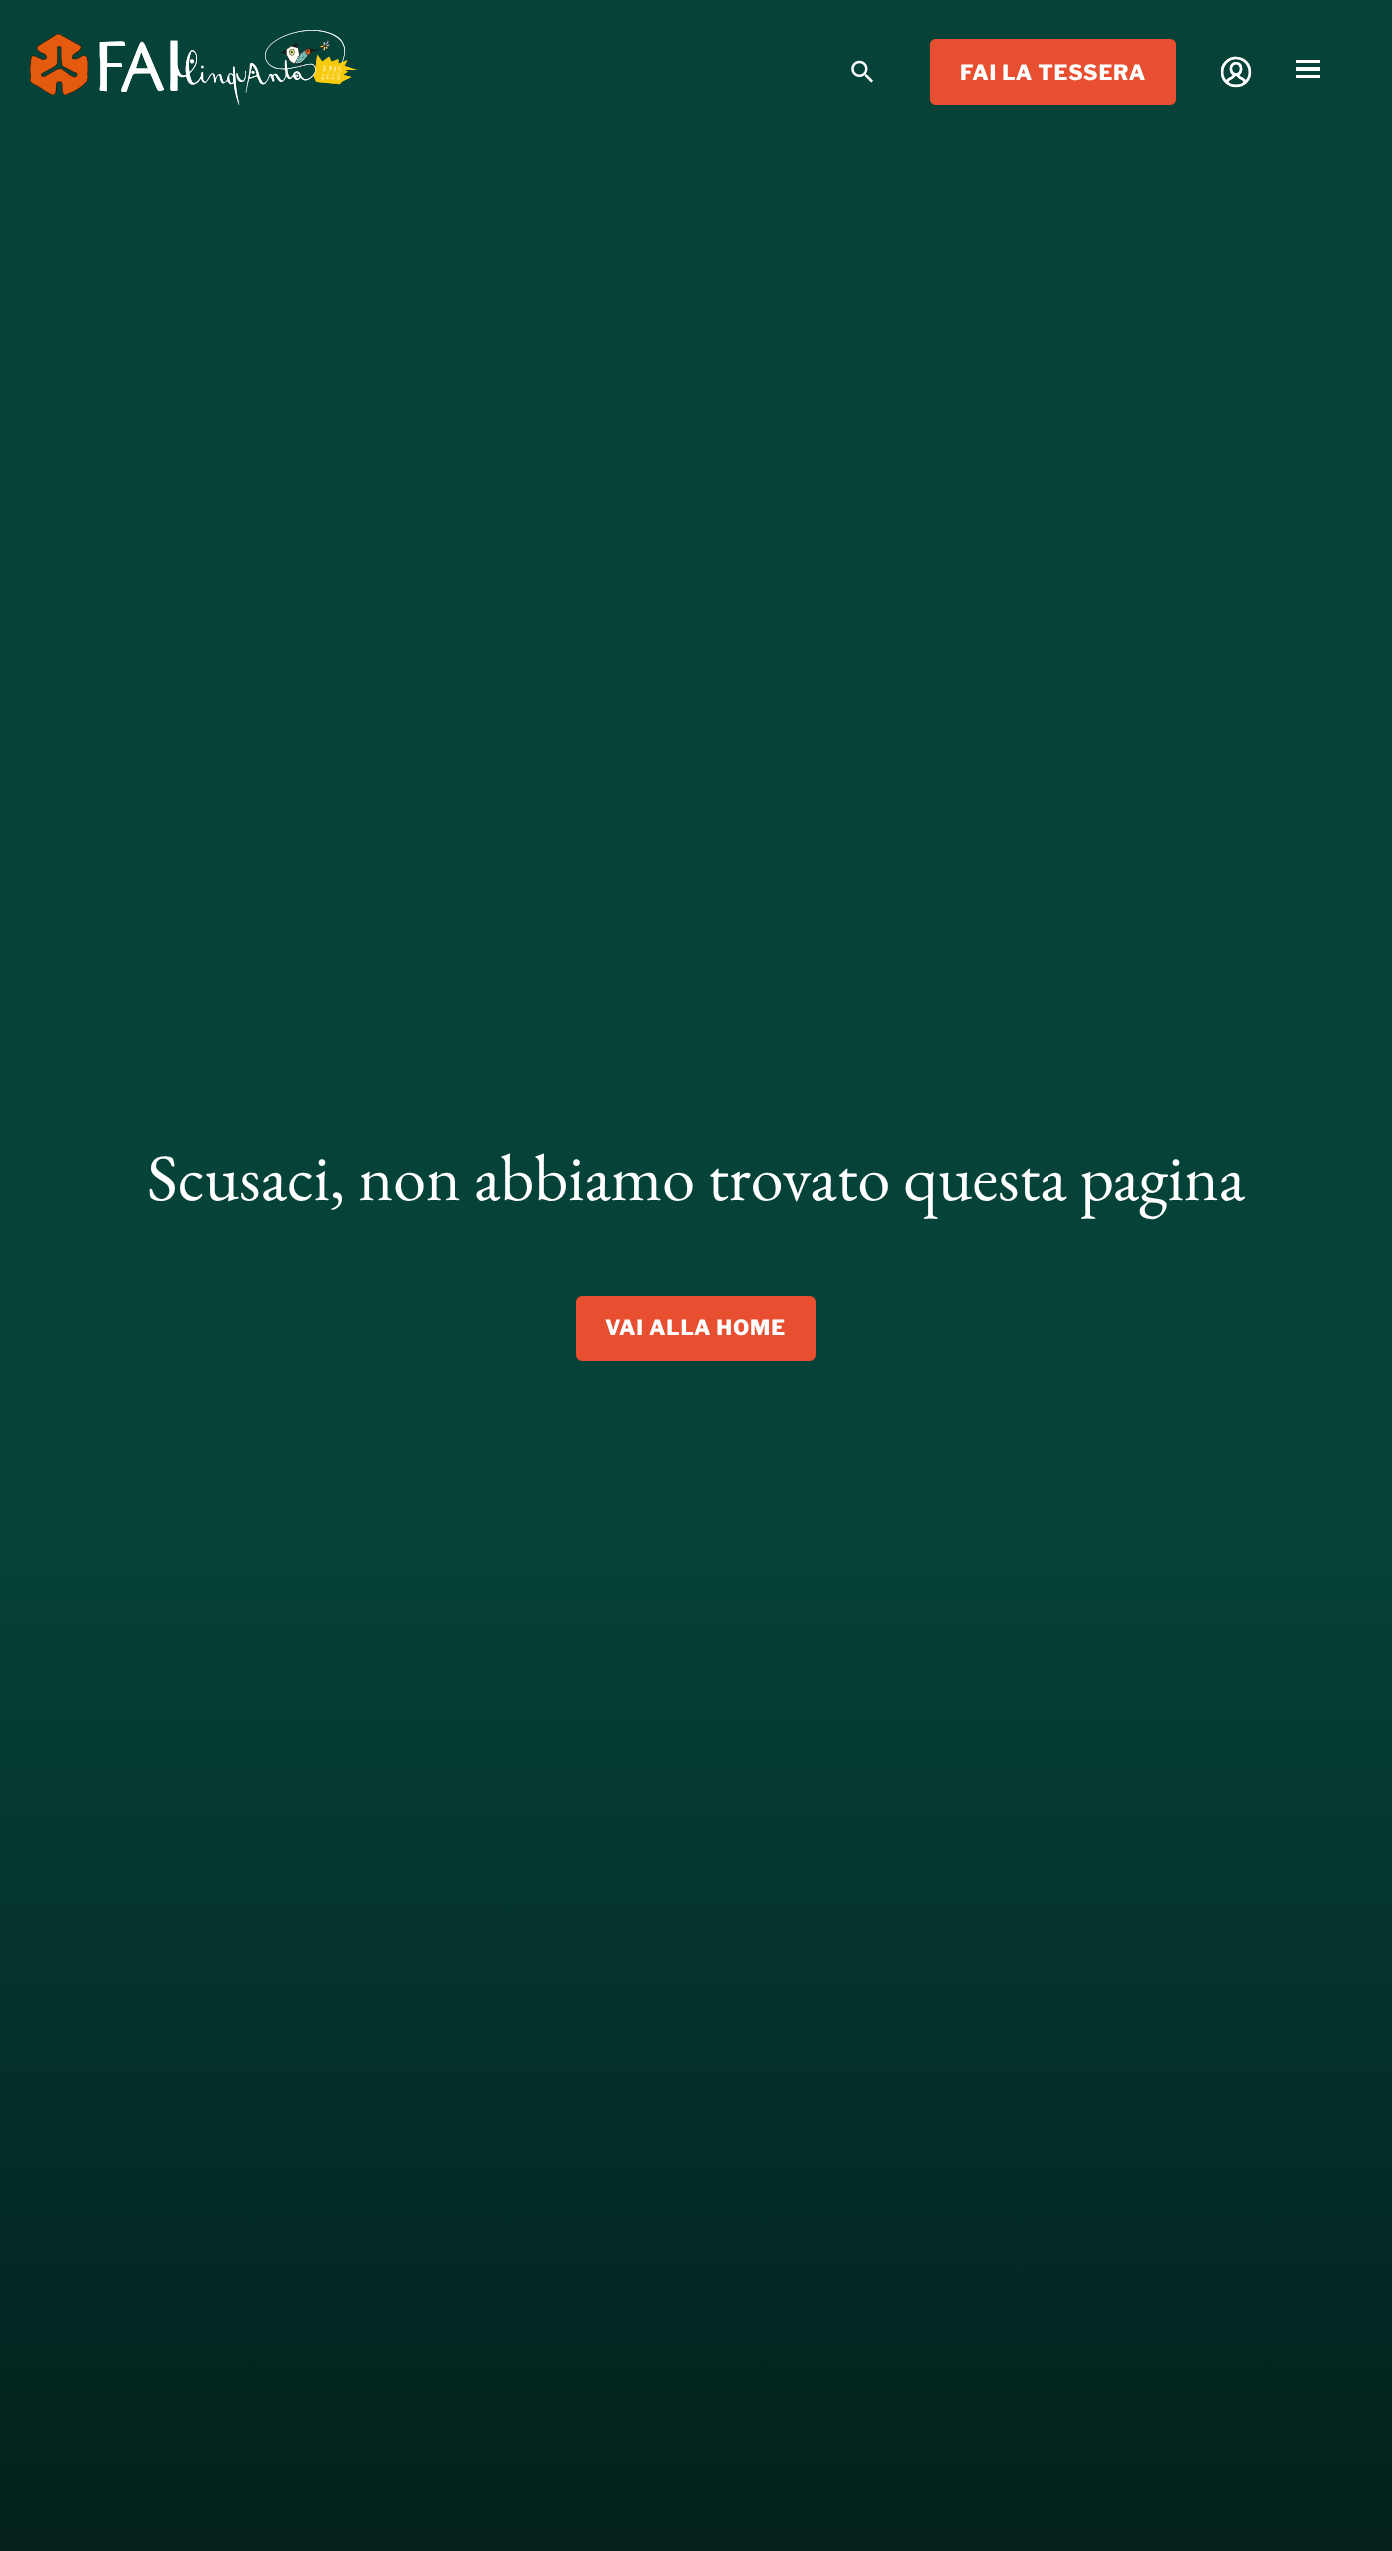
<svg xmlns="http://www.w3.org/2000/svg" width="1392" height="2551">
<style>
.a{font:800 21px Libre Franklin;letter-spacing:0.8px;fill:#fff}
.b{font:66px EB Garamond;fill:#fff}
</style>
<defs>
<linearGradient id="g1" gradientUnits="userSpaceOnUse" x1="696" y1="1532" x2="696" y2="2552"><stop offset="0" stop-color="#054138"/><stop offset="1" stop-color="#03201c"/></linearGradient>
</defs>
<rect width="100%" height="100%" fill="#054238"/>
<image href="1.png" x="30" y="30" width="327" height="75"/>
<rect fill="none" stroke="#e74f30" stroke-width="3" x="931.5" y="40.5" width="243" height="63" rx="4.5"/>
<image href="2.png" x="1220" y="56" width="32" height="32"/>
<image href="3.png" x="1296" y="60" width="24" height="18"/>
<image href="4.png" x="30" y="30" width="327" height="75"/>
<image href="5.png" x="851" y="60" width="22" height="23"/>
<rect fill="#e74f30" stroke="#e74f30" stroke-width="3" x="931.5" y="40.5" width="243" height="63" rx="4.5"/>
<image href="6.png" x="1220" y="56" width="32" height="32"/>
<path fill="#fff" d="M1296 67h24v4H1296z"/>
<rect fill="#e74f30" stroke="#e74f30" stroke-width="3" x="577.5" y="1297.5" width="237" height="62" rx="4.5"/>
<path fill="url(#g1)" d="M0 1578h1392v973H0z"/>
<text class="a" x="960" y="80">FAI LA TESSERA</text>
<text class="b" x="147" y="1200">Scusaci, non abbiamo trovato questa pagina</text>
<text class="a" x="605" y="1335">VAI ALLA HOME</text>
</svg>
